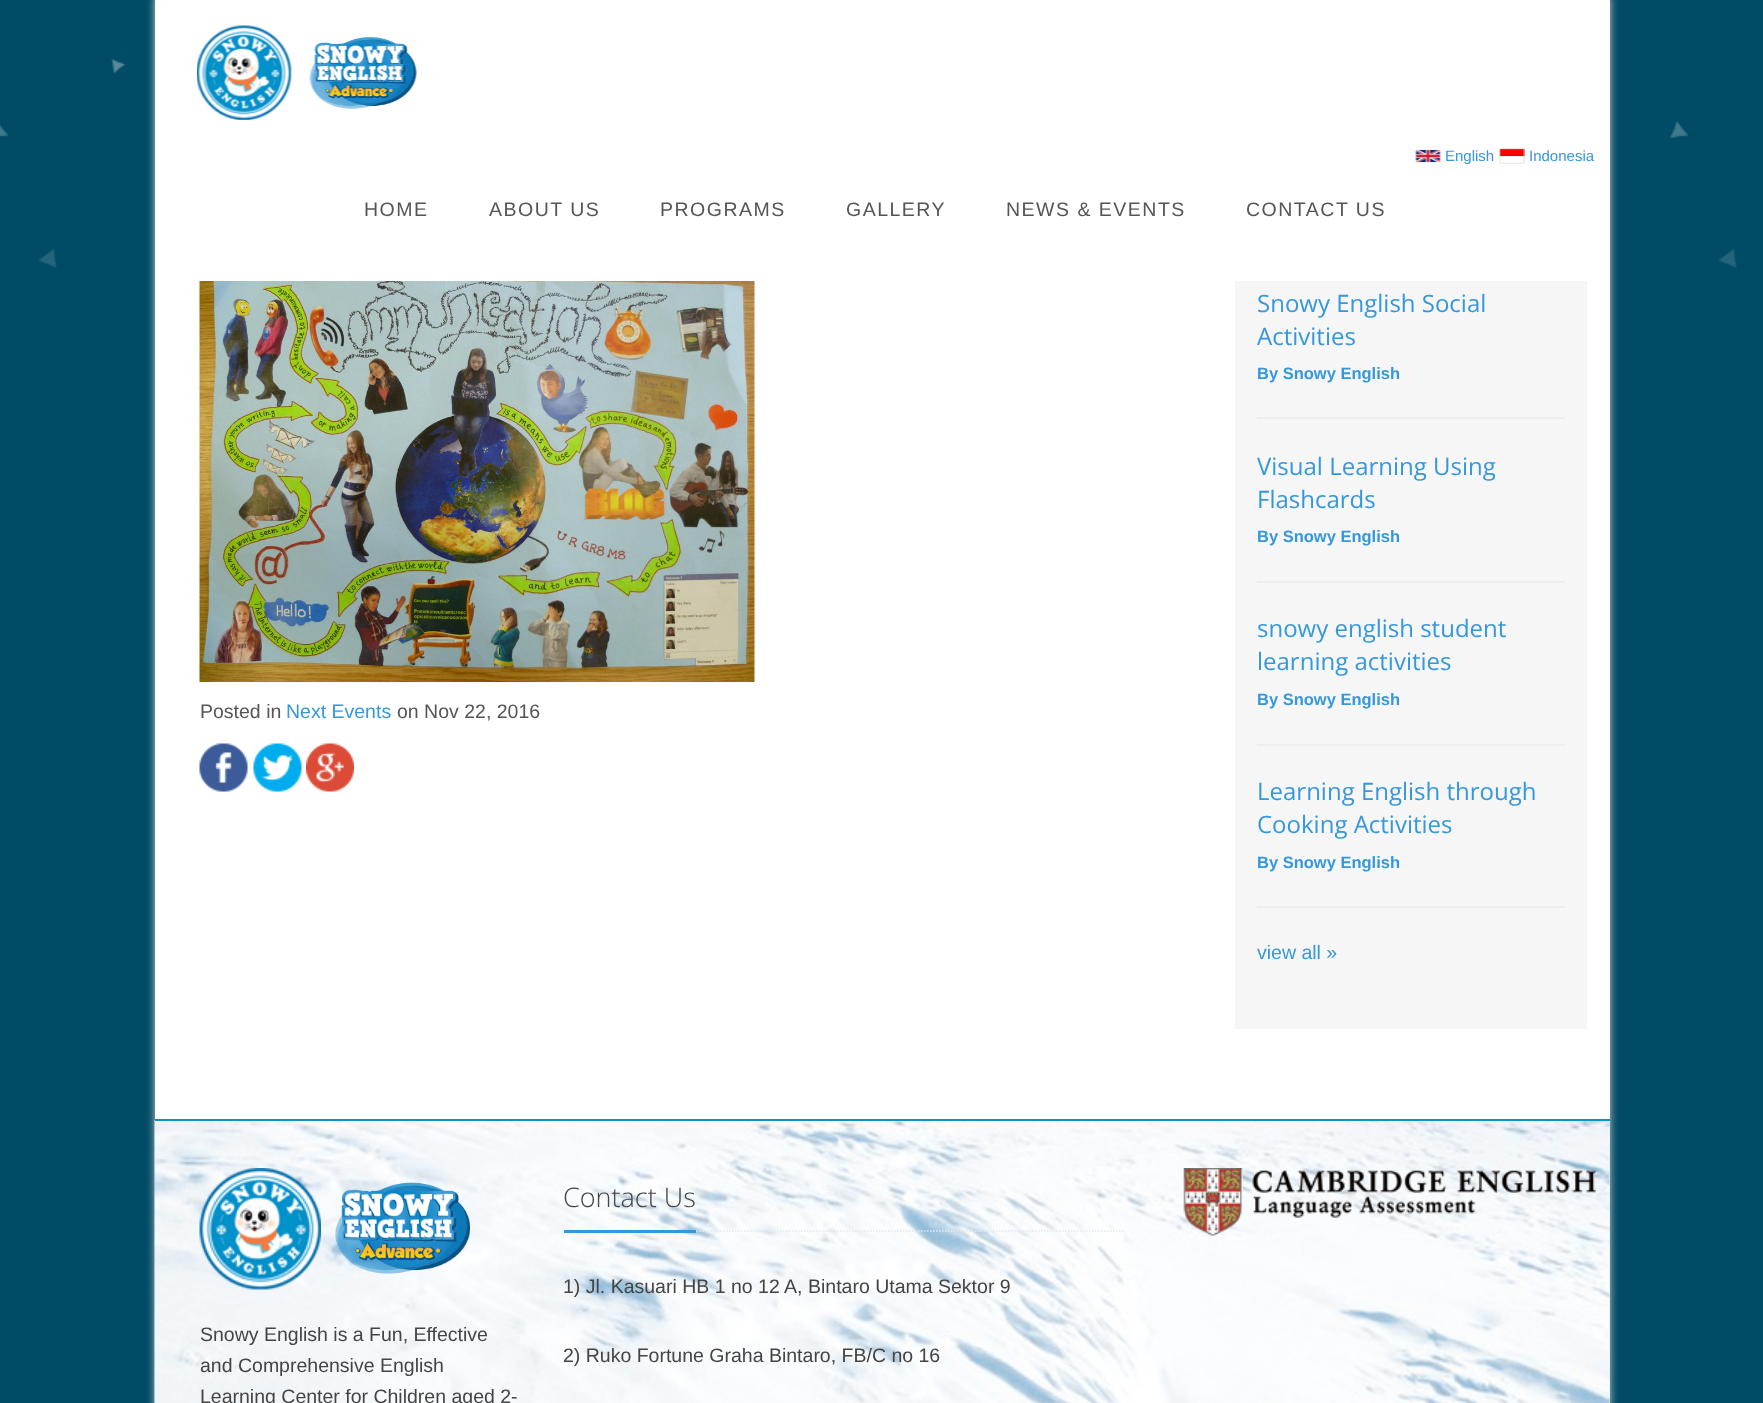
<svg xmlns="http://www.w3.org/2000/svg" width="1763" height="1403">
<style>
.a{font:15px Liberation Sans;fill:#3498db}
.b{font:19.5px Liberation Sans;letter-spacing:1.5px;fill:#555}
.c{font:19.5px Liberation Sans;fill:#555}
.d{font:19.5px Liberation Sans;fill:#3498db}
.e{font:24px Open Sans;fill:#3498db}
.f{font:bold 16.5px Liberation Sans;fill:#3498db}
.g{font:19.5px Liberation Sans;fill:#444}
.h{font:300 27px Open Sans;fill:#444}
</style>
<rect width="100%" height="100%" fill="#004b66"/>
<image href="1.png" x="0" y="59" width="1737" height="209"/>
<path fill="#ccc" filter="blur(4px)" d="M155 -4h1455v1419H155z"/>
<path fill="#fff" d="M155 0h1455v1119H155z"/>
<image href="2.png" x="197" y="25" width="95" height="95"/>
<image href="3.png" x="309" y="37" width="108" height="72"/>
<image href="4.png" x="1415" y="149" width="26" height="14"/>
<image href="5.png" x="1499" y="148" width="26" height="16"/>
<image href="6.png" x="199" y="281" width="556" height="401"/>
<image href="7.png" x="199" y="743" width="49" height="49"/>
<image href="8.png" x="253" y="743" width="49" height="49"/>
<image href="9.png" x="306" y="743" width="48" height="49"/>
<path fill="#f6f6f6" d="M1235 281h352v748H1235z"/>
<path fill="#eee" d="M1257 417h308v2H1257z"/>
<path fill="#eee" d="M1257 581h308v2H1257z"/>
<path fill="#eee" d="M1257 744h308v2H1257z"/>
<path fill="#eee" d="M1257 906h308v2H1257z"/>
<path fill="#cff4f7" d="M1609 1121h1v282H1609z"/>
<image href="10.png" x="154" y="1120" width="1456" height="283"/>
<path fill="#0d93c8" d="M155 1119h1455v2H155z"/>
<image href="11.png" x="199" y="1168" width="122" height="122"/>
<image href="12.png" x="335" y="1182" width="135" height="92"/>
<path fill="none" stroke="#e4e9f0" stroke-width="1.5" stroke-dasharray="1.5 1.5" d="M564 1231h561"/>
<path fill="#3498db" d="M564 1230h132v3H564z"/>
<image href="13.png" x="1183" y="1168" width="413" height="68"/>
<text class="a" x="1445" y="161">English</text>
<text class="a" x="1529" y="161">Indonesia</text>
<text class="b" x="364" y="216">HOME</text>
<text class="b" x="489" y="216">ABOUT US</text>
<text class="b" x="660" y="216">PROGRAMS</text>
<text class="b" x="846" y="216">GALLERY</text>
<text class="b" x="1006" y="216">NEWS &amp; EVENTS</text>
<text class="b" x="1246" y="216">CONTACT US</text>
<text class="c" x="200" y="718">Posted in</text>
<text class="d" x="286" y="718">Next Events</text>
<text class="c" x="397" y="718">on Nov 22, 2016</text>
<text class="e" x="1257" y="312">Snowy English Social</text>
<text class="e" x="1257" y="345">Activities</text>
<text class="f" x="1257" y="379">By Snowy English</text>
<text class="e" x="1257" y="475">Visual Learning Using</text>
<text class="e" x="1257" y="508">Flashcards</text>
<text class="f" x="1257" y="542">By Snowy English</text>
<text class="e" x="1257" y="637">snowy english student</text>
<text class="e" x="1257" y="670">learning activities</text>
<text class="f" x="1257" y="705">By Snowy English</text>
<text class="e" x="1257" y="800">Learning English through</text>
<text class="e" x="1257" y="833">Cooking Activities</text>
<text class="f" x="1257" y="868">By Snowy English</text>
<text class="d" x="1257" y="959">view all »</text>
<text class="g" x="200" y="1341">Snowy English is a Fun, Effective</text>
<text class="g" x="200" y="1372">and Comprehensive English</text>
<text class="g" x="200" y="1403">Learning Center for Children aged 2-</text>
<text class="h" x="563" y="1207">Contact Us</text>
<text class="g" x="563" y="1293">1) Jl. Kasuari HB 1 no 12 A, Bintaro Utama Sektor 9</text>
<text class="g" x="563" y="1362">2) Ruko Fortune Graha Bintaro, FB/C no 16</text>
</svg>
